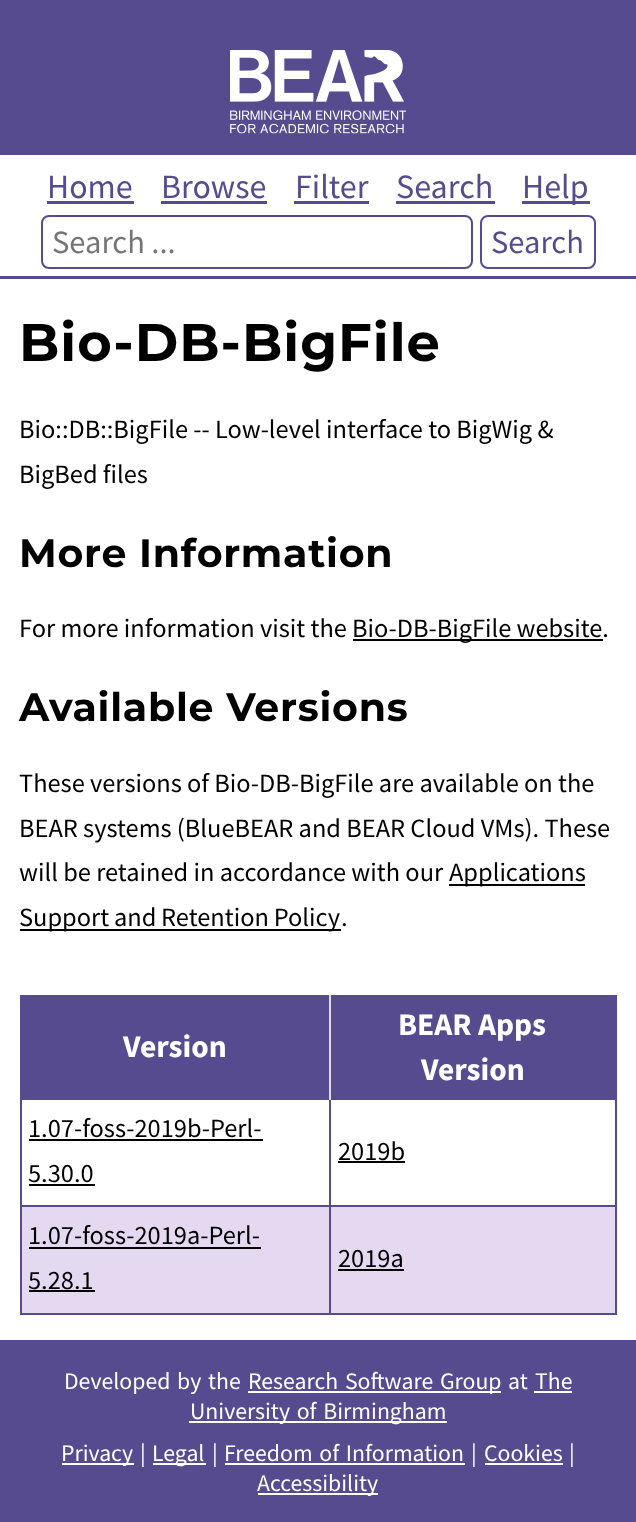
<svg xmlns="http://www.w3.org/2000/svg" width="636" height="1522">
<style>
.a{font:34px Source Sans Pro;fill:#574b90}
.b{font:32.5px Source Sans Pro;fill:#757575}
.c{font:32.5px Source Sans Pro;fill:#574b90}
.d{font:bold 52.75px Montserrat;letter-spacing:1px;fill:#000}
.e{font:26.4px Source Sans Pro;fill:#000}
.f{font:bold 39.5px Montserrat;letter-spacing:0.75px;fill:#000}
.g{font:bold 31.5px Source Sans Pro;fill:#fff}
.h{font:23.75px Source Sans Pro;fill:#fff}
</style>
<rect width="100%" height="100%" fill="#fff"/>
<path fill="#574b90" d="M0 0h636v155H0z"/>
<image href="1.png" x="230" y="50" width="176" height="84"/>
<path fill="#574b90" d="M0 276h636v3H0z"/>
<path fill="#574b90" d="M47 201h87v3H47z"/>
<path fill="#574b90" d="M161 201h106v3H161z"/>
<path fill="#574b90" d="M294 201h75v3H294z"/>
<path fill="#574b90" d="M396 201h99v3H396z"/>
<path fill="#574b90" d="M522 201h68v3H522z"/>
<rect fill="none" stroke="#574b90" stroke-width="2" x="42" y="216" width="430" height="52" rx="7"/>
<rect fill="none" stroke="#574b90" stroke-width="2" x="481" y="216" width="114" height="52" rx="7"/>
<path fill="#000" d="M353 639h250v2H353z"/>
<path fill="#000" d="M449 884h136v2H449z"/>
<path fill="#000" d="M20 929h321v2H20z"/>
<path fill="#574b90" d="M615 995h2v319H615z"/>
<path fill="#574b90" d="M20 1313h597v2H20z"/>
<path fill="#574b90" d="M20 995h2v319H20z"/>
<path fill="#574b90" d="M22 995h307v103H22z"/>
<path fill="#574b90" d="M331 995h284v103H331z"/>
<path fill="#574b90" d="M329 1098h288v2H329z"/>
<path fill="#574b90" d="M329 1205h288v2H329z"/>
<path fill="#e5d9f2" d="M22 1207h593v106H22z"/>
<path fill="#574b90" d="M329 1205h2v109H329z"/>
<path fill="#574b90" d="M20 1205h310v2H20z"/>
<path fill="#574b90" d="M329 1098h2v108H329z"/>
<path fill="#574b90" d="M20 1098h310v2H20z"/>
<path fill="#e5d9f2" d="M329 995h2v105H329z"/>
<path fill="#000" d="M29 1139h234v2H29z"/>
<path fill="#000" d="M29 1184h66v2H29z"/>
<path fill="#000" d="M338 1161h67v2H338z"/>
<path fill="#000" d="M29 1247h232v2H29z"/>
<path fill="#000" d="M29 1290h66v2H29z"/>
<path fill="#000" d="M338 1269h66v2H338z"/>
<path fill="#574b90" d="M0 1340h636v182H0z"/>
<path fill="#fff" d="M248 1391h253v2H248z"/>
<path fill="#fff" d="M534 1391h38v2H534z"/>
<path fill="#fff" d="M189 1421h258v2H189z"/>
<path fill="#fff" d="M62 1463h72v2H62z"/>
<path fill="#fff" d="M153 1463h53v2H153z"/>
<path fill="#fff" d="M225 1463h240v2H225z"/>
<path fill="#fff" d="M485 1463h78v2H485z"/>
<path fill="#fff" d="M258 1493h120v2H258z"/>
<text class="a" x="47" y="198">Home</text>
<text class="a" x="161" y="198">Browse</text>
<text class="a" x="295" y="198">Filter</text>
<text class="a" x="396" y="198">Search</text>
<text class="a" x="522" y="198">Help</text>
<text class="b" x="52" y="253">Search ...</text>
<text class="c" x="491" y="253">Search</text>
<text class="d" x="19" y="361">Bio-DB-BigFile</text>
<text class="e" x="19" y="438">Bio::DB::BigFile -- Low-level interface to BigWig &amp;</text>
<text class="e" x="19" y="483">BigBed files</text>
<text class="f" x="19" y="567">More Information</text>
<text class="e" x="19" y="637">For more information visit the</text>
<text class="e" x="352" y="637">Bio-DB-BigFile website.</text>
<text class="f" x="19" y="721">Available Versions</text>
<text class="e" x="19" y="792">These versions of Bio-DB-BigFile are available on the</text>
<text class="e" x="19" y="837">BEAR systems (BlueBEAR and BEAR Cloud VMs). These</text>
<text class="e" x="19" y="881">will be retained in accordance with our</text>
<text class="e" x="449" y="881">Applications</text>
<text class="e" x="19" y="926" word-spacing="-0.5">Support and Retention Policy</text>
<text class="e" x="341" y="926">.</text>
<text class="g" x="123" y="1057">Version</text>
<text class="g" x="398" y="1035">BEAR Apps</text>
<text class="g" x="421" y="1080">Version</text>
<text class="e" x="28" y="1137">1.07-foss-2019b-Perl-</text>
<text class="e" x="28" y="1182">5.30.0</text>
<text class="e" x="338" y="1160">2019b</text>
<text class="e" x="28" y="1244">1.07-foss-2019a-Perl-</text>
<text class="e" x="28" y="1289">5.28.1</text>
<text class="e" x="338" y="1267">2019a</text>
<text class="h" x="64" y="1389" word-spacing="2">Developed by the</text>
<text class="h" x="248" y="1389" word-spacing="2">Research Software Group</text>
<text class="h" x="508" y="1389">at</text>
<text class="h" x="535" y="1389">The</text>
<text class="h" x="190" y="1419" word-spacing="2">University of Birmingham</text>
<text class="h" x="61" y="1461">Privacy</text>
<text class="h" x="140" y="1461">|</text>
<text class="h" x="152" y="1461">Legal</text>
<text class="h" x="212" y="1461">|</text>
<text class="h" x="224" y="1461" word-spacing="2">Freedom of Information</text>
<text class="h" x="471" y="1461">|</text>
<text class="h" x="484" y="1461">Cookies</text>
<text class="h" x="569" y="1461">|</text>
<text class="h" x="257" y="1491">Accessibility</text>
</svg>
